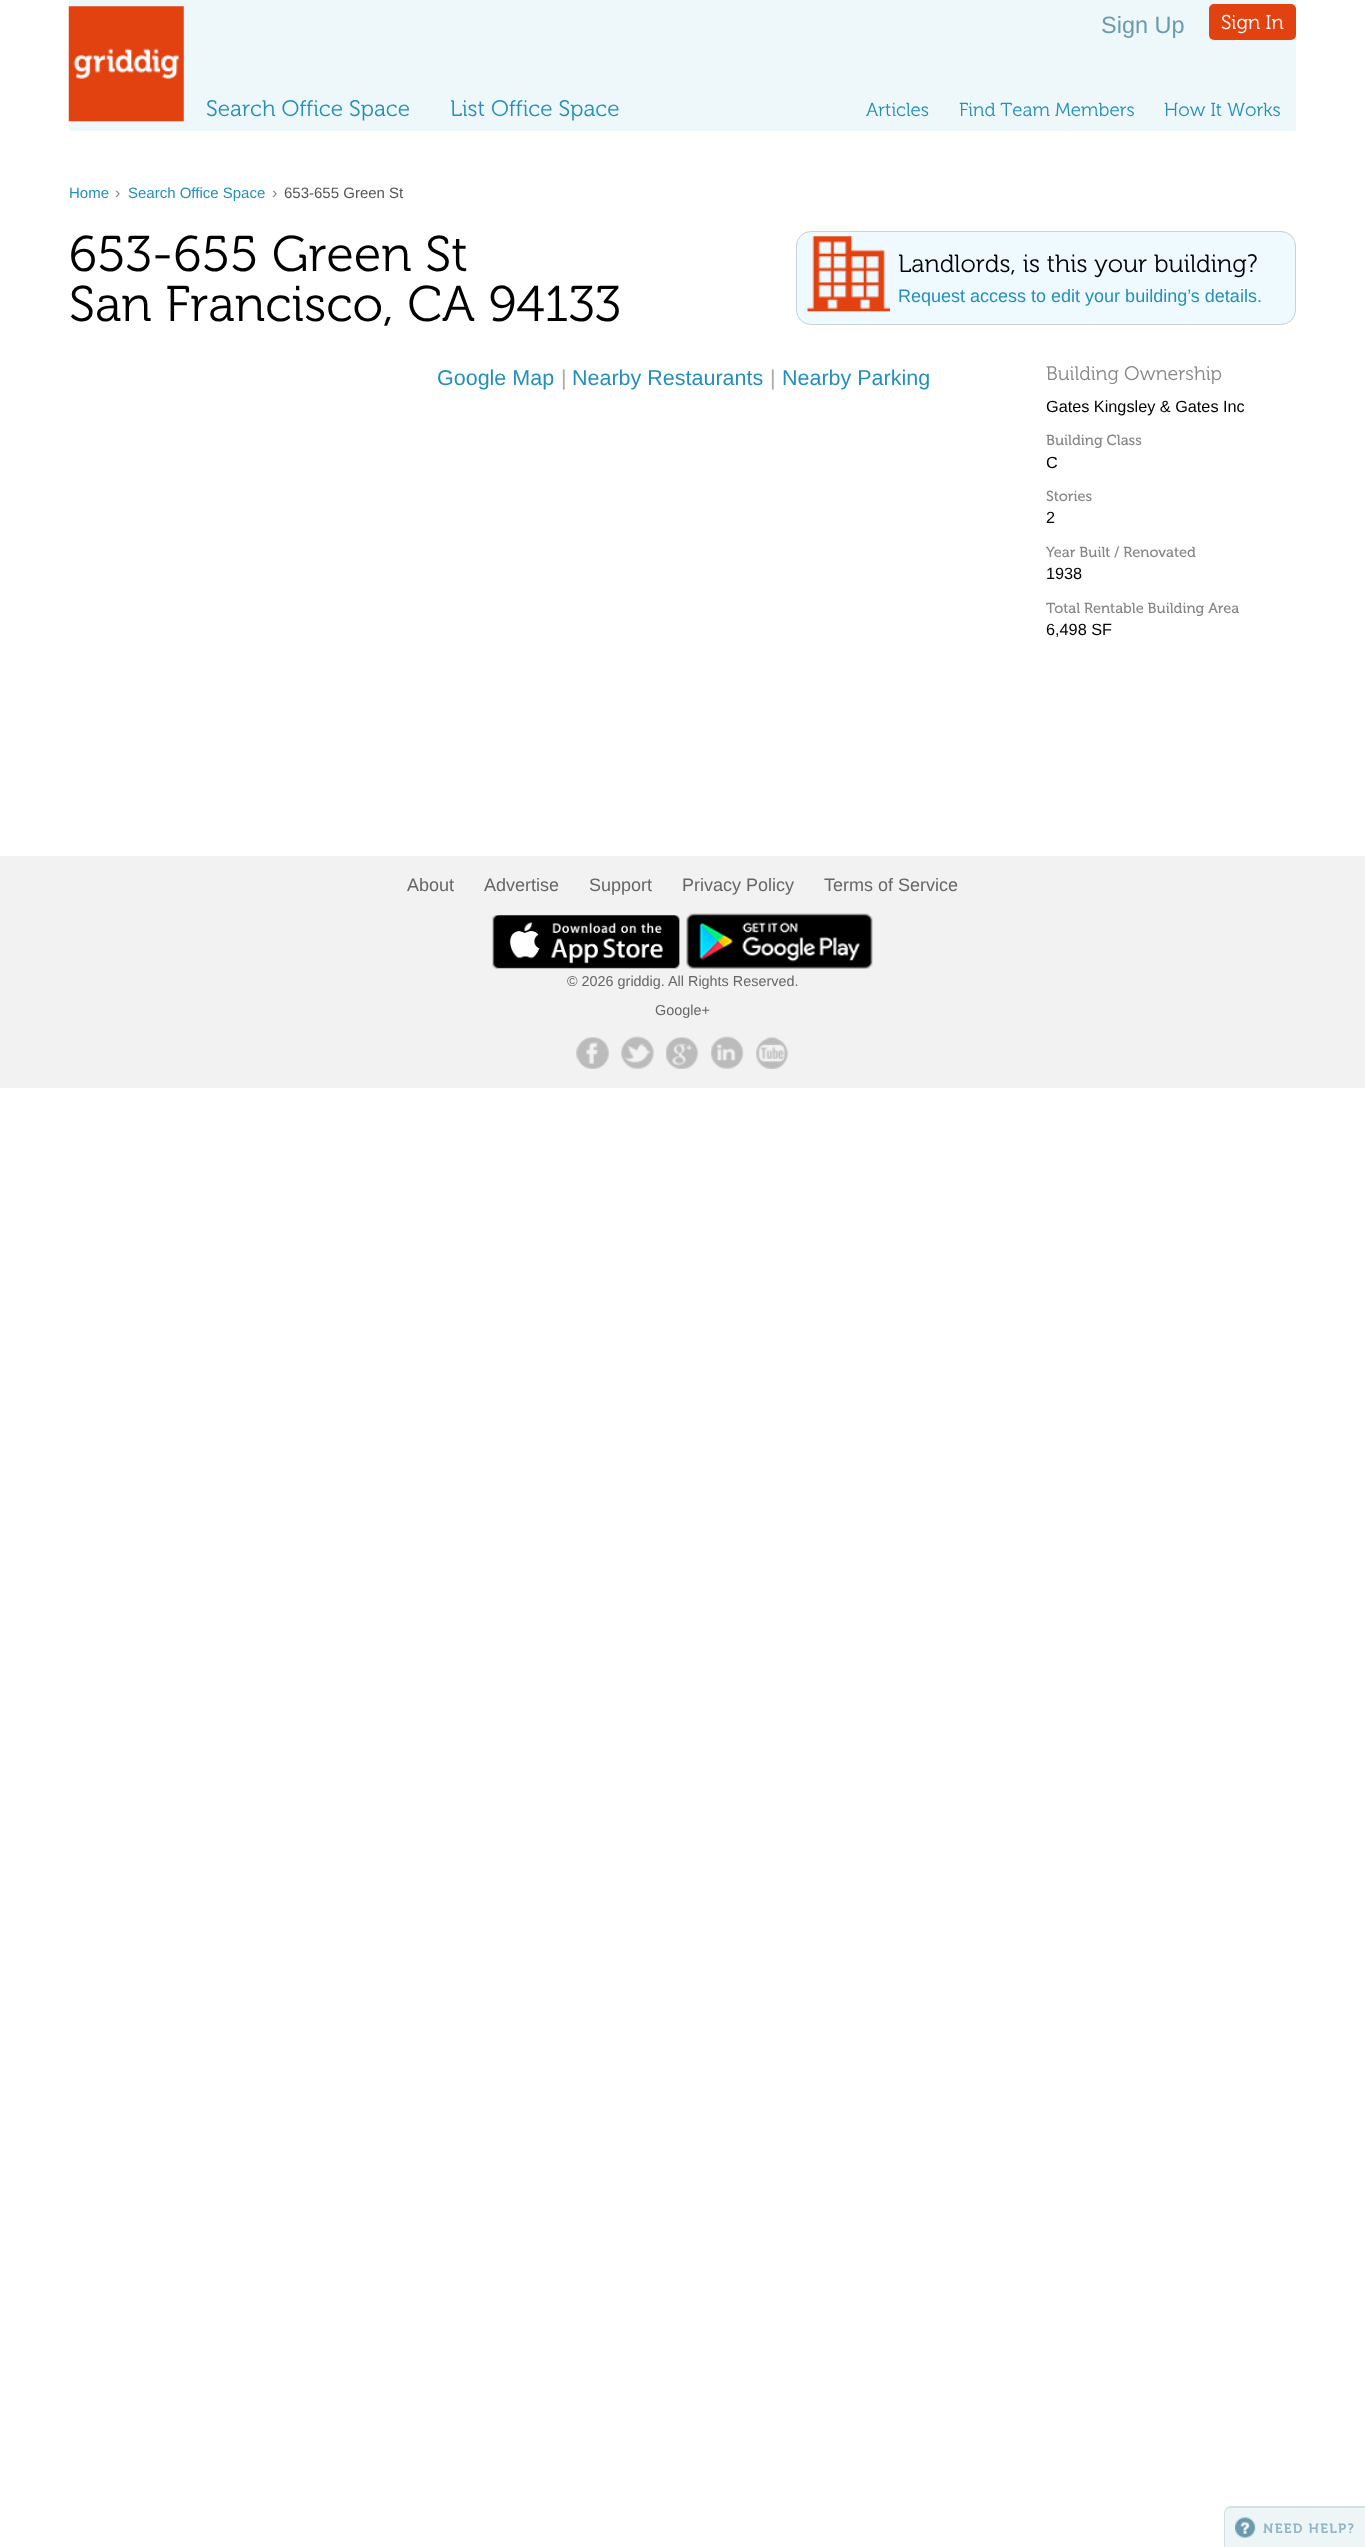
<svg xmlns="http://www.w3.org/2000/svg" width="1365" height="2547">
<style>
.a{font:23.5px Liberation Sans;fill:#6b9bae}
.b{font:300 20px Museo;fill:#fff}
.c{font:300 22.5px Museo;fill:#258fba}
.d{font:300 18.75px Museo;fill:#258fba}
.e{font:15px Liberation Sans;fill:#258fba}
.f{font:16px Liberation Sans;fill:#878787}
.g{font:15px Liberation Sans;fill:#565656}
.h{font:300 50px Museo;fill:#000}
.i{font:300 25px Museo;fill:#000}
.j{font:18px Liberation Sans;fill:#258fba}
.k{font:21.5px Liberation Sans;fill:#258fba}
.l{font:21.5px Liberation Sans;fill:#aaa}
.m{font:300 19.5px Museo;fill:#878787}
.n{font:16.25px Liberation Sans;fill:#000}
.o{font:14.6px Museo;fill:#878787}
.p{font:18px Liberation Sans;fill:#666}
.q{font:14.4px Liberation Sans;fill:#666}
.r{font:600 13.5px Museo;letter-spacing:1.25px;fill:#90b5c4}
</style>
<rect width="100%" height="100%" fill="#fff"/>
<path fill="#eef7fa" d="M69 0h1227v131H69z"/>
<image href="1.png" x="68" y="6" width="116" height="116"/>
<rect fill="#e24110" x="1209" y="4" width="87" height="36" rx="5"/>
<rect fill="#eefaff" x="796" y="231" width="500" height="94" rx="15"/>
<image href="2.png" x="807" y="236" width="83" height="76"/>
<rect fill="none" stroke="#c7d2d6" x="796.5" y="231.5" width="499" height="93" rx="14.5"/>
<path fill="#f2f2f2" d="M0 856h1365v232H0z"/>
<image href="3.png" x="492" y="915" width="188" height="54"/>
<image href="4.png" x="686" y="913" width="187" height="56"/>
<image href="5.png" x="576" y="1037" width="33" height="32"/>
<image href="6.png" x="621" y="1036" width="33" height="33"/>
<image href="7.png" x="666" y="1037" width="33" height="32"/>
<image href="8.png" x="711" y="1036" width="33" height="33"/>
<image href="9.png" x="756" y="1037" width="33" height="32"/>
<path fill="#eef5f7" d="M1231 2508h134v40h-140v-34c0-3.5 2.5-6 6-6z"/>
<path fill="#d1e1e7" fill-rule="evenodd" d="M1231 2506h134v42h-141v-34c0-4 3-8 7-8zm0 2h134v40h-140v-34c0-4 3-6 6-6z"/>
<image href="10.png" x="1235" y="2517" width="21" height="21"/>
<text class="a" x="1101" y="33">Sign Up</text>
<text class="b" x="1221" y="29">Sign In</text>
<text class="c" x="206" y="116">Search Office Space</text>
<text class="c" x="450" y="116">List Office Space</text>
<text class="d" x="866" y="116">Articles</text>
<text class="d" x="959" y="116">Find Team Members</text>
<text class="d" x="1164" y="116">How It Works</text>
<text class="e" x="69" y="198">Home</text>
<text class="f" x="115" y="198">›</text>
<text class="e" x="128" y="198">Search Office Space</text>
<text class="f" x="272" y="198">›</text>
<text class="g" x="284" y="198">653-655 Green St</text>
<text class="h" x="69" y="271">653-655 Green St</text>
<text class="h" x="69" y="321">San Francisco, CA 94133</text>
<text class="i" x="898" y="272">Landlords, is this your building?</text>
<text class="j" x="898" y="302">Request access to edit your building’s details.</text>
<text class="k" x="437" y="385">Google Map</text>
<text class="l" x="561" y="385">|</text>
<text class="k" x="572" y="385">Nearby Restaurants</text>
<text class="l" x="770" y="385">|</text>
<text class="k" x="782" y="385">Nearby Parking</text>
<text class="m" x="1046" y="380">Building Ownership</text>
<text class="n" x="1046" y="412">Gates Kingsley &amp; Gates Inc</text>
<text class="o" x="1046" y="445">Building Class</text>
<text class="n" x="1046" y="468">C</text>
<text class="o" x="1046" y="501">Stories</text>
<text class="n" x="1046" y="523">2</text>
<text class="o" x="1046" y="557">Year Built / Renovated</text>
<text class="n" x="1046" y="579">1938</text>
<text class="o" x="1046" y="613">Total Rentable Building Area</text>
<text class="n" x="1046" y="635">6,498 SF</text>
<text class="p" x="407" y="891">About</text>
<text class="p" x="484" y="891">Advertise</text>
<text class="p" x="589" y="891">Support</text>
<text class="p" x="682" y="891">Privacy Policy</text>
<text class="p" x="824" y="891">Terms of Service</text>
<text class="q" x="567" y="986">© 2026 griddig. All Rights Reserved.</text>
<text class="q" x="655" y="1015">Google+</text>
<text class="r" x="1263" y="2533">NEED HELP?</text>
</svg>
